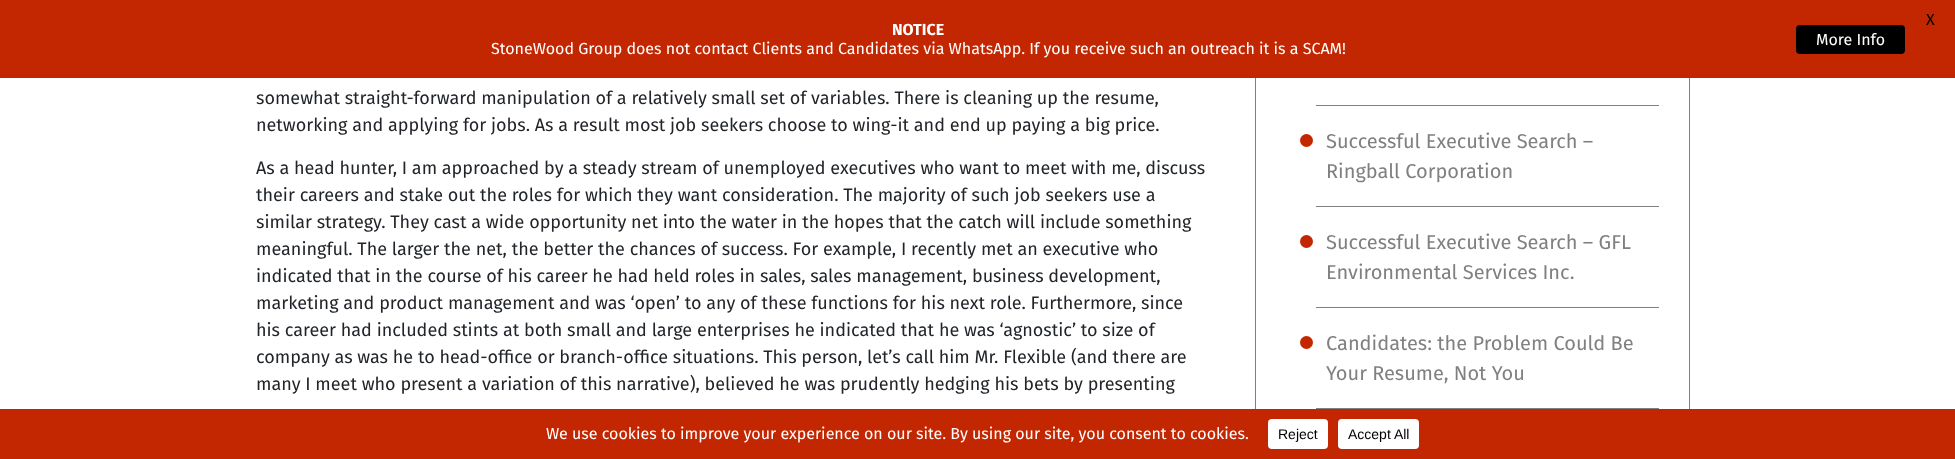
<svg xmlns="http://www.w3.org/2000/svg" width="1955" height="459">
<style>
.a{font:16px Fira Sans;fill:#000}
.b{font:bold 16px Fira Sans;fill:#fff}
.c{font:16px Fira Sans;fill:#fff}
.d{font:18px Fira Sans;fill:#212529}
.e{font:20px Fira Sans;fill:#808080}
.f{font:14px Liberation Sans;fill:#000}
</style>
<rect width="100%" height="100%" fill="#fff"/>
<path fill="none" stroke="#808080" d="M1255.5 -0.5h434v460H1255.5z"/>
<path fill="#c32701" d="M0 0h1955v78H0z"/>
<rect fill="#000" x="1796" y="25" width="109" height="29" rx="4"/>
<path fill="#808080" d="M1316 105h343v1H1316z"/>
<path fill="#808080" d="M1316 206h343v1H1316z"/>
<circle fill="#c32701" cx="1306.5" cy="140.5" r="6.5"/>
<path fill="#808080" d="M1316 307h343v1H1316z"/>
<circle fill="#c32701" cx="1306.5" cy="241.5" r="6.5"/>
<path fill="#808080" d="M1316 408h343v1H1316z"/>
<circle fill="#c32701" cx="1306.5" cy="342.5" r="6.5"/>
<path fill="#c32701" d="M0 409h1955v50H0z"/>
<rect fill="#fff" x="1268" y="419" width="60" height="30" rx="4"/>
<rect fill="#fff" x="1338" y="419" width="81" height="30" rx="4"/>
<text class="a" x="1926" y="25">X</text>
<text class="b" x="892" y="35">NOTICE</text>
<text class="c" x="491" y="54">StoneWood Group does not contact Clients and Candidates via WhatsApp. If you receive such an outreach it is a SCAM!</text>
<text class="c" x="1816" y="45">More Info</text>
<text class="d" x="256" y="104">somewhat straight-forward manipulation of a relatively small set of variables. There is cleaning up the resume,</text>
<text class="d" x="256" y="131">networking and applying for jobs. As a result most job seekers choose to wing-it and end up paying a big price.</text>
<text class="d" x="256" y="174">As a head hunter, I am approached by a steady stream of unemployed executives who want to meet with me, discuss</text>
<text class="d" x="256" y="201">their careers and stake out the roles for which they want consideration. The majority of such job seekers use a</text>
<text class="d" x="256" y="228">similar strategy. They cast a wide opportunity net into the water in the hopes that the catch will include something</text>
<text class="d" x="256" y="255">meaningful. The larger the net, the better the chances of success. For example, I recently met an executive who</text>
<text class="d" x="256" y="282">indicated that in the course of his career he had held roles in sales, sales management, business development,</text>
<text class="d" x="256" y="309">marketing and product management and was ‘open’ to any of these functions for his next role. Furthermore, since</text>
<text class="d" x="256" y="336">his career had included stints at both small and large enterprises he indicated that he was ‘agnostic’ to size of</text>
<text class="d" x="256" y="363">company as was he to head-office or branch-office situations. This person, let’s call him Mr. Flexible (and there are</text>
<text class="d" x="256" y="390">many I meet who present a variation of this narrative), believed he was prudently hedging his bets by presenting</text>
<text class="e" x="1326" y="148">Successful Executive Search –</text>
<text class="e" x="1326" y="178">Ringball Corporation</text>
<text class="e" x="1326" y="249">Successful Executive Search – GFL</text>
<text class="e" x="1326" y="279">Environmental Services Inc.</text>
<text class="e" x="1326" y="350">Candidates: the Problem Could Be</text>
<text class="e" x="1326" y="380">Your Resume, Not You</text>
<text class="c" x="546" y="439">We use cookies to improve your experience on our site. By using our site, you consent to cookies.</text>
<text class="f" x="1278" y="439">Reject</text>
<text class="f" x="1348" y="439">Accept All</text>
</svg>
